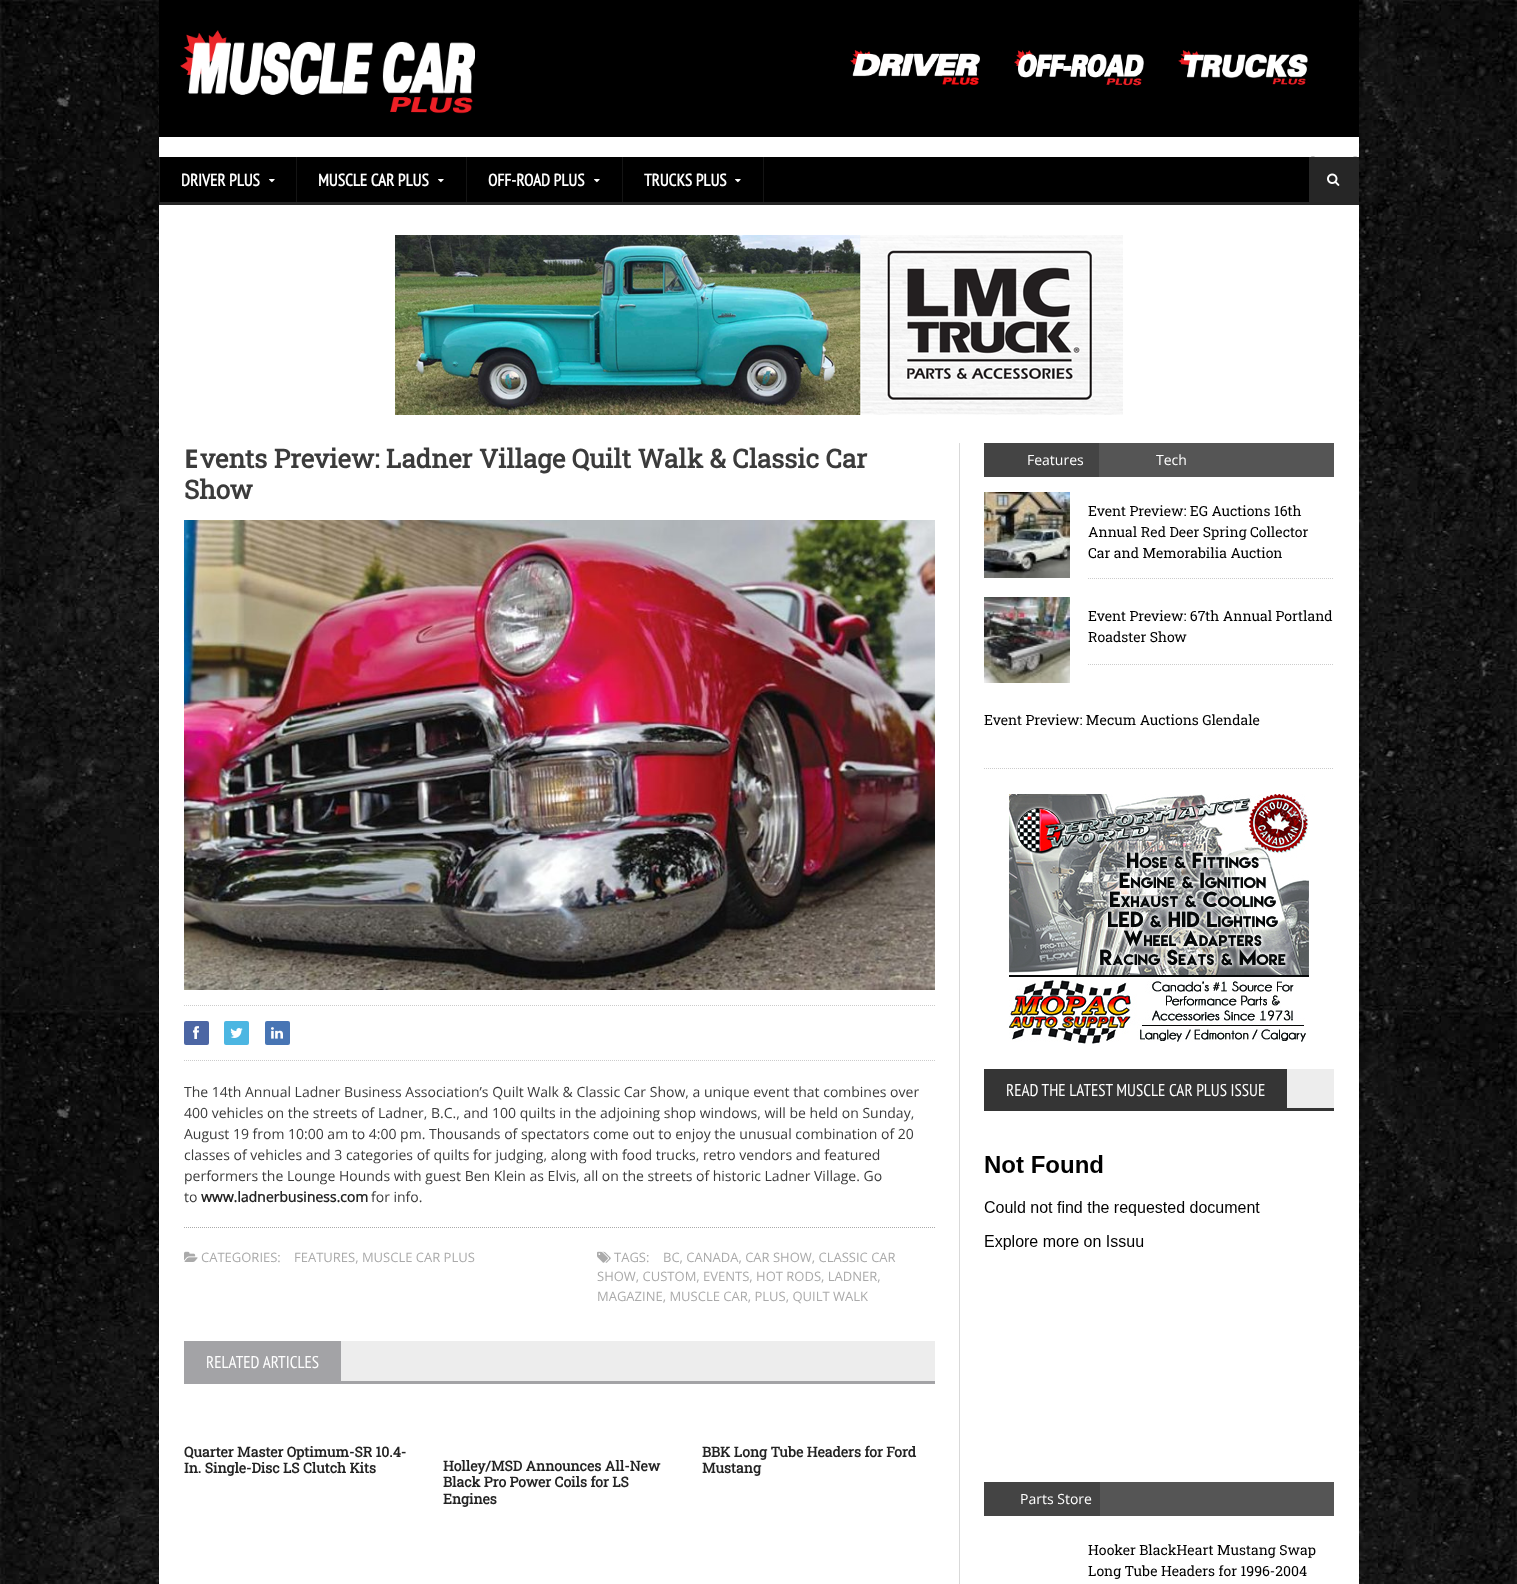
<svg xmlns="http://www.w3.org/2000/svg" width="1517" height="1584">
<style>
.a{font:bold 17px PT Sans Narrow;fill:#fff}
.b{font:bold 26px Noto Sans;fill:#3b3b3b}
.c{font:bold 26px Roboto Slab;fill:#3b3b3b}
.d{font:14px Open Sans;fill:#3b3b3b}
.e{font:bold 14px Open Sans;fill:#232323}
.f{font:13px Open Sans;fill:#aaa}
.g{font:17px PT Sans Narrow;fill:#fff}
.h{font:bold 14px Roboto Slab;fill:#232323}
.i{font:14px Open Sans;fill:#fff}
.j{font:14px Roboto Slab;fill:#000}
</style>
<rect width="100%" height="100%" fill="#fff"/>
<image href="1.png" x="0" y="0" width="1517" height="1584"/>
<path fill="#00000033" filter="blur(5px)" d="M159 0h1200v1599H159z"/>
<path fill="#fff" d="M159 137h1200v1447H159z"/>
<path fill="#000" d="M159 0h1200v137H159z"/>
<image href="2.png" x="180" y="30" width="295" height="84"/>
<image href="3.png" x="850" y="50" width="130" height="36"/>
<image href="4.png" x="1014" y="50" width="130" height="36"/>
<image href="5.png" x="1178" y="50" width="130" height="35"/>
<path fill="#000" d="M160 157h1149v45H160z"/>
<path fill="#262626" d="M159 202h1200v3H159z"/>
<path fill="#191919" d="M159 157h1v45H159z"/>
<image href="6.png" x="269" y="179" width="6" height="4"/>
<path fill="#141414" d="M296 157h1v45H296z"/>
<image href="6.png" x="438" y="179" width="6" height="4"/>
<path fill="#141414" d="M466 157h1v45H466z"/>
<image href="6.png" x="594" y="179" width="6" height="4"/>
<path fill="#141414" d="M763 157h1v45H763z"/>
<path fill="#141414" d="M622 157h1v45H622z"/>
<image href="6.png" x="735" y="179" width="6" height="4"/>
<path fill="#262626" d="M1309 157h50v45H1309z"/>
<path fill="#252525" d="M1311 159h46c1 0 2 1 2 2c0-6-3-4-10-4h-30c-7 0-10-2-10 4c0-1 1-2 2-2z"/>
<image href="7.png" x="1327" y="173" width="13" height="13"/>
<image href="8.png" x="395" y="235" width="728" height="180"/>
<image href="9.png" x="184" y="520" width="751" height="470"/>
<path fill="none" stroke="#ccc" stroke-dasharray="1 1" d="M184 1005.5h751"/>
<path fill="none" stroke="#ccc" stroke-dasharray="1 1" d="M184 1060.5h751"/>
<rect fill="#4c66a4" x="184" y="1021" width="25" height="24" rx="2"/>
<image href="10.png" x="193" y="1026" width="6" height="13"/>
<rect fill="#4cb6e2" x="224" y="1021" width="25" height="24" rx="2"/>
<image href="11.png" x="230" y="1028" width="13" height="10"/>
<rect fill="#4875b4" x="265" y="1021" width="25" height="24" rx="2"/>
<image href="12.png" x="271" y="1027" width="12" height="12"/>
<path fill="none" stroke="#aaa" stroke-dasharray="1 1" d="M184 1227.5h751"/>
<image href="13.png" x="184" y="1251" width="14" height="11"/>
<image href="14.png" x="597" y="1251" width="14" height="12"/>
<path fill="#ededed" d="M341 1341h594v40H341z"/>
<path fill="#a3a3a6" d="M184 1341h157v40H184z"/>
<path fill="#a3a3a6" d="M184 1381h751v3H184z"/>
<path fill="#d9d9d9" d="M959 443h1v1141H959z"/>
<path fill="#555" d="M1099 443h235v34H1099z"/>
<path fill="#444" d="M984 443h115v34H984z"/>
<image href="15.png" x="984" y="492" width="86" height="86"/>
<path fill="none" stroke="#ccc" stroke-dasharray="1 1" d="M1088 578.5h246"/>
<image href="16.png" x="984" y="597" width="86" height="86"/>
<path fill="none" stroke="#ccc" stroke-dasharray="1 1" d="M1088 664.5h246"/>
<path fill="none" stroke="#ccc" stroke-dasharray="1 1" d="M984 768.5h350"/>
<image href="17.png" x="1009" y="794" width="300" height="250"/>
<path fill="#ededed" d="M1287 1069h47v39H1287z"/>
<path fill="#353535" d="M984 1069h303v39H984z"/>
<path fill="#353535" d="M984 1108h350v3H984z"/>
<image href="18.png" x="984" y="1155" width="276" height="95"/>
<path fill="#555" d="M1100 1482h234v34H1100z"/>
<path fill="#444" d="M984 1482h116v34H984z"/>
<text class="a" x="181" y="186">DRIVER PLUS</text>
<text class="a" x="318" y="186">MUSCLE CAR PLUS</text>
<text class="a" x="488" y="186">OFF-ROAD PLUS</text>
<text class="a" x="644" y="186">TRUCKS PLUS</text>
<text class="b" x="184" y="468">E</text>
<text class="c" x="200" y="468">vents Preview: Ladner Village Quilt Walk &amp; Classic Car</text>
<text class="c" x="184" y="499">Show</text>
<text class="d" x="184" y="1097">The 14th Annual Ladner Business Association’s Quilt Walk &amp; Classic Car Show, a unique event that combines over</text>
<text class="d" x="184" y="1118">400 vehicles on the streets of Ladner, B.C., and 100 quilts in the adjoining shop windows, will be held on Sunday,</text>
<text class="d" x="184" y="1139">August 19 from 10:00 am to 4:00 pm. Thousands of spectators come out to enjoy the unusual combination of 20</text>
<text class="d" x="184" y="1160">classes of vehicles and 3 categories of quilts for judging, along with food trucks, retro vendors and featured</text>
<text class="d" x="184" y="1181">performers the Lounge Hounds with guest Ben Klein as Elvis, all on the streets of historic Ladner Village. Go</text>
<text class="d" x="184" y="1202">to</text>
<text class="e" x="201" y="1202">www.ladnerbusiness.com</text>
<text class="d" x="371" y="1202">for info.</text>
<text class="f" x="201" y="1262">CATEGORIES:</text>
<text class="f" x="294" y="1262">FEATURES, MUSCLE CAR PLUS</text>
<text class="f" x="614" y="1262">TAGS:</text>
<text class="f" x="663" y="1262">BC, CANADA, CAR SHOW, CLASSIC CAR</text>
<text class="f" x="597" y="1281">SHOW, CUSTOM, EVENTS, HOT RODS, LADNER,</text>
<text class="f" x="597" y="1301">MAGAZINE, MUSCLE CAR, PLUS, QUILT WALK</text>
<text class="g" x="206" y="1368">RELATED ARTICLES</text>
<text class="h" x="184" y="1457">Quarter Master Optimum-SR 10.4-</text>
<text class="h" x="184" y="1473">In. Single-Disc LS Clutch Kits</text>
<text class="h" x="443" y="1471">Holley/MSD Announces All-New</text>
<text class="h" x="443" y="1487">Black Pro Power Coils for LS</text>
<text class="h" x="443" y="1504">Engines</text>
<text class="h" x="702" y="1457">BBK Long Tube Headers for Ford</text>
<text class="h" x="702" y="1473">Mustang</text>
<text class="i" x="1027" y="465">Features</text>
<text class="i" x="1156" y="465">Tech</text>
<text class="j" x="1088" y="516">Event Preview: EG Auctions 16th</text>
<text class="j" x="1088" y="537">Annual Red Deer Spring Collector</text>
<text class="j" x="1088" y="558">Car and Memorabilia Auction</text>
<text class="j" x="1088" y="621">Event Preview: 67th Annual Portland</text>
<text class="j" x="1088" y="642">Roadster Show</text>
<text class="j" x="984" y="725">Event Preview: Mecum Auctions Glendale</text>
<text class="g" x="1006" y="1096">READ THE LATEST MUSCLE CAR PLUS ISSUE</text>
<text class="i" x="1020" y="1504">Parts Store</text>
<text class="j" x="1088" y="1555">Hooker BlackHeart Mustang Swap</text>
<text class="j" x="1088" y="1576">Long Tube Headers for 1996-2004</text>
</svg>
